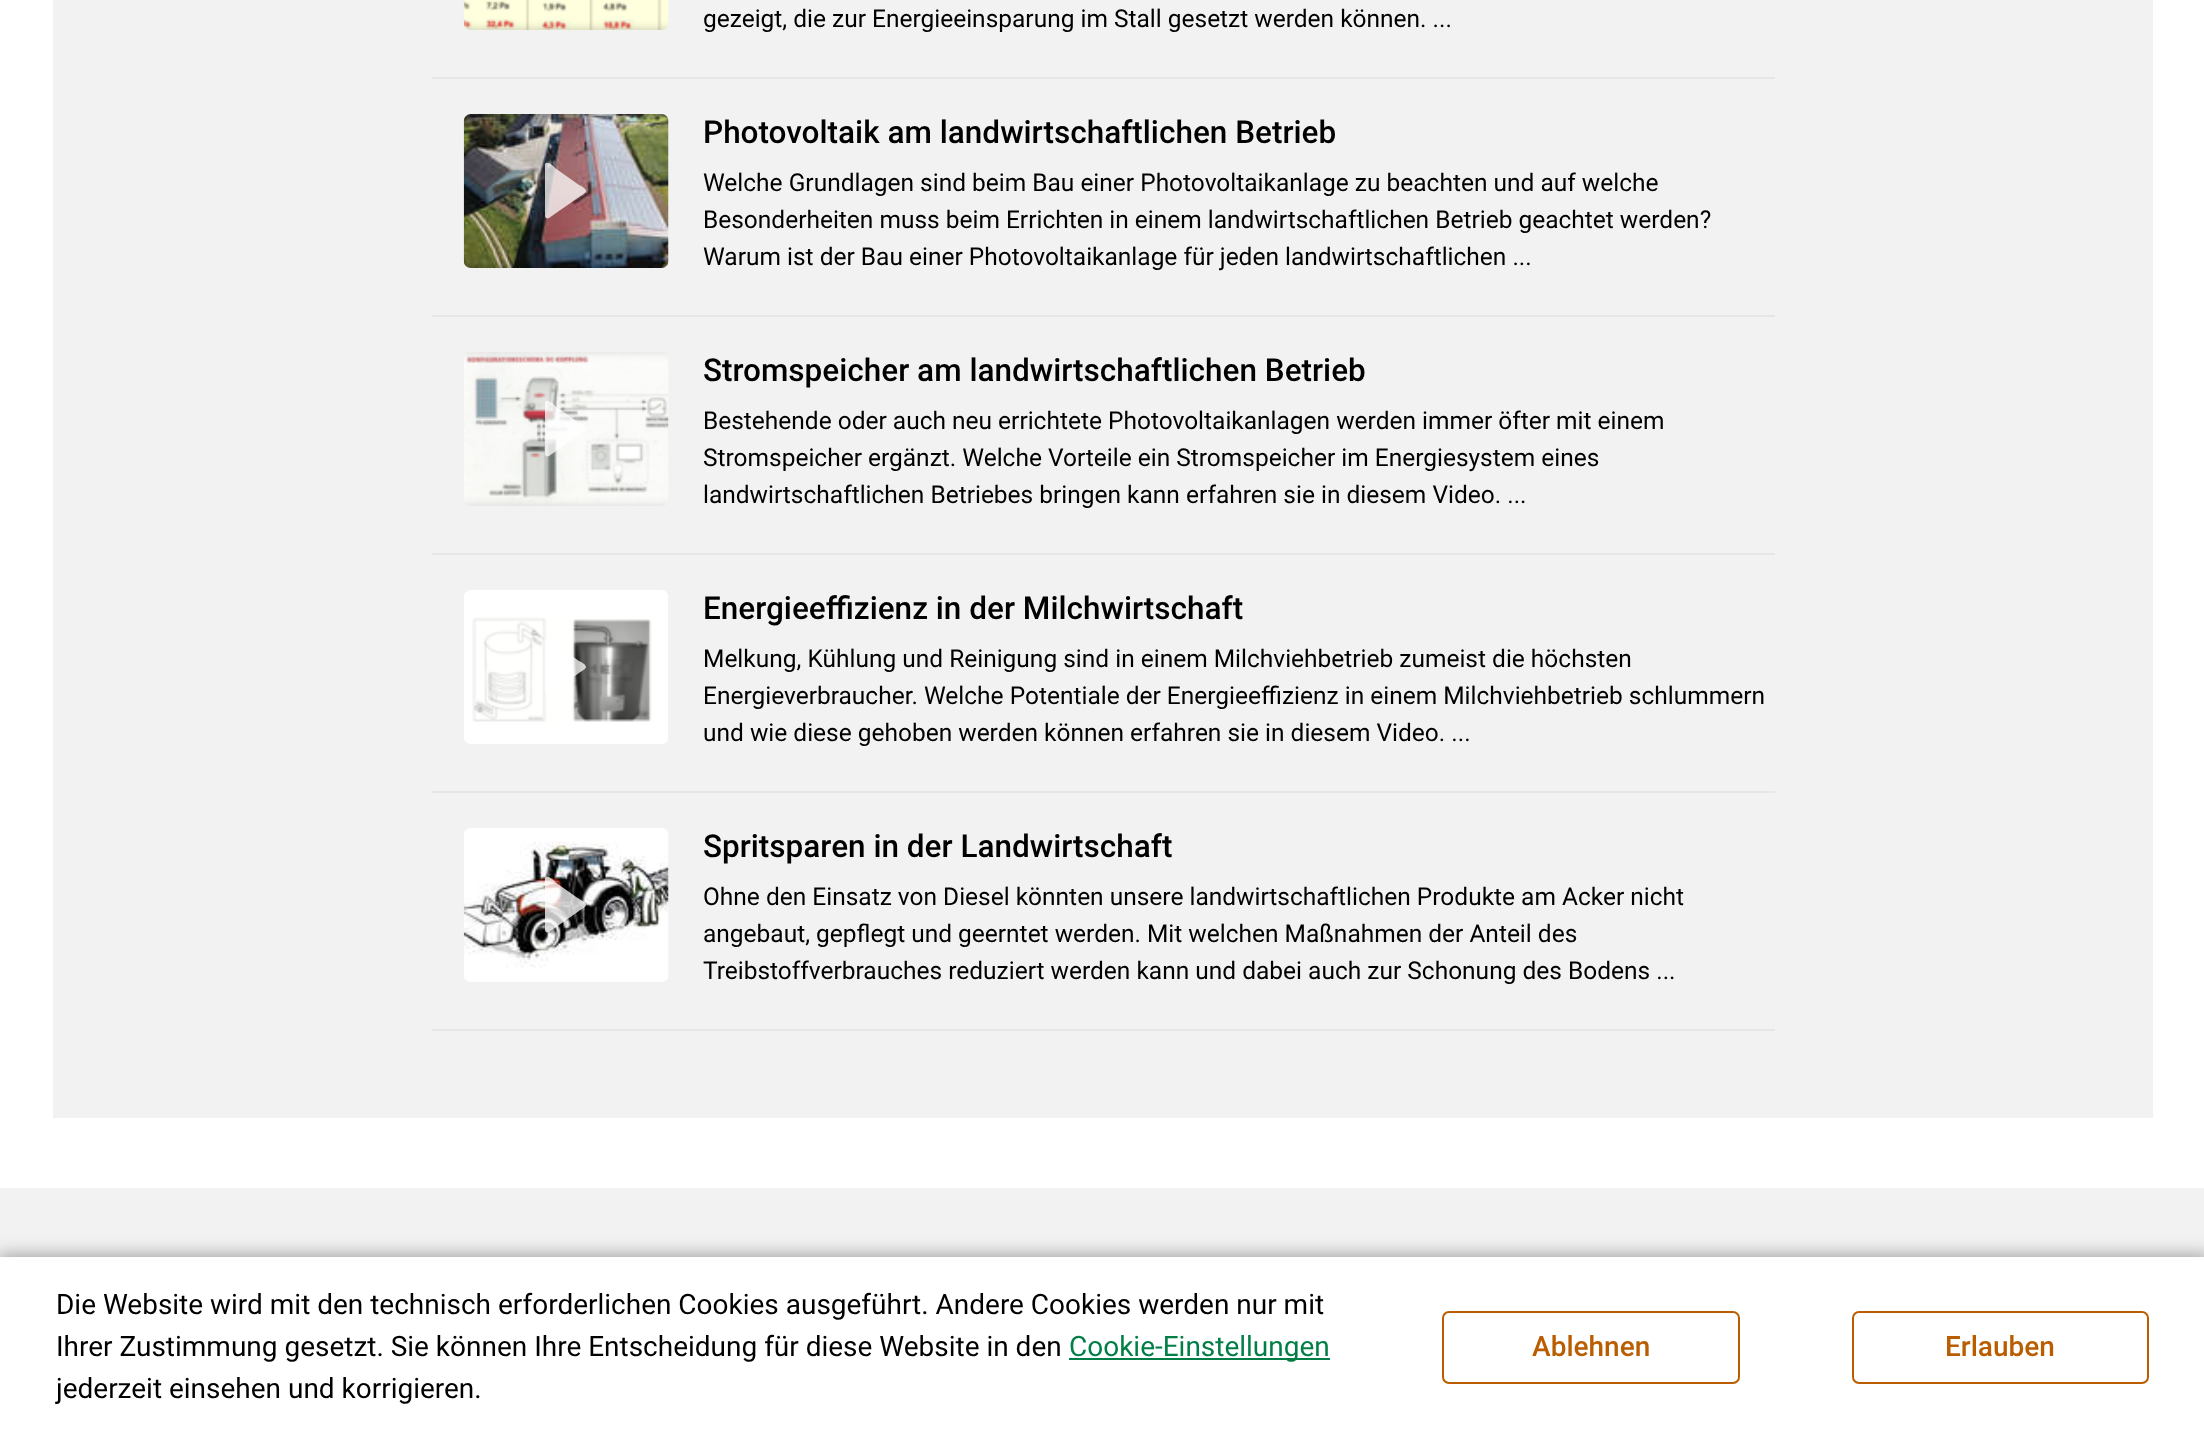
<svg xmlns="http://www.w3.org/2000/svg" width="2204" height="1437">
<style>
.a{font:24.5px Roboto;fill:#000}
.b{font:500 31.5px Roboto;fill:#000}
.c{font:28px Roboto;fill:#000}
.d{font:28px Roboto;fill:#007e46}
.e{font:500 28px Roboto;fill:#ba5d00}
</style>
<rect width="100%" height="100%" fill="#fff"/>
<path fill="#f2f2f2" d="M53 0h2100v1118H53z"/>
<image href="1.png" x="463" y="0" width="206" height="30"/>
<path fill="#e6e6e6" d="M432 77h1343v2H432z"/>
<image href="2.png" x="463" y="114" width="206" height="154"/>
<path fill="#ffffffbf" d="M545 216v-52c2-4 10 3 10 4l24 17c0 0 7 3 7 6c0 2-6 5-7 6l-30 21c-2 1-4 0-4-2z"/>
<path fill="#e6e6e6" d="M432 315h1343v2H432z"/>
<image href="3.png" x="464" y="352" width="205" height="154"/>
<path fill="#ffffffbf" d="M545 454v-52c2-4 10 3 10 4l24 17c0 0 7 3 7 6c0 2-6 5-7 6l-30 21c-2 1-4 0-4-2z"/>
<path fill="#e6e6e6" d="M432 553h1343v2H432z"/>
<image href="4.png" x="464" y="590" width="204" height="154"/>
<path fill="#ffffffbf" d="M545 692v-52c2-4 10 3 10 4l24 17c0 0 7 3 7 6c0 2-6 5-7 6l-30 21c-2 1-4 0-4-2z"/>
<path fill="#e6e6e6" d="M432 791h1343v2H432z"/>
<image href="5.png" x="463" y="828" width="206" height="154"/>
<path fill="#ffffffbf" d="M545 930v-52c2-4 10 3 10 4l24 17c0 0 7 3 7 6c0 2-6 5-7 6l-30 21c-2 1-4 0-4-2z"/>
<path fill="#e6e6e6" d="M432 1029h1343v2H432z"/>
<path fill="#f2f2f2" d="M0 1188h2204v69H0z"/>
<path fill="#00000059" filter="blur(9px)" d="M-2 1255h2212v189H-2z"/>
<path fill="#fff" d="M0 1257h2204v180H0z"/>
<path fill="#007e46" d="M1069 1358h261v2H1069z"/>
<rect fill="none" stroke="#ba5d00" stroke-width="2" x="1443" y="1312" width="296" height="71" rx="6"/>
<rect fill="none" stroke="#ba5d00" stroke-width="2" x="1853" y="1312" width="295" height="71" rx="6"/>
<text class="a" x="703" y="27">gezeigt, die zur Energieeinsparung im Stall gesetzt werden können. ...</text>
<text class="b" x="703" y="143">Photovoltaik am landwirtschaftlichen Betrieb</text>
<text class="a" x="703" y="191">Welche Grundlagen sind beim Bau einer Photovoltaikanlage zu beachten und auf welche</text>
<text class="a" x="703" y="228">Besonderheiten muss beim Errichten in einem landwirtschaftlichen Betrieb geachtet werden?</text>
<text class="a" x="703" y="265">Warum ist der Bau einer Photovoltaikanlage für jeden landwirtschaftlichen ...</text>
<text class="b" x="703" y="381">Stromspeicher am landwirtschaftlichen Betrieb</text>
<text class="a" x="703" y="429">Bestehende oder auch neu errichtete Photovoltaikanlagen werden immer öfter mit einem</text>
<text class="a" x="703" y="466">Stromspeicher ergänzt. Welche Vorteile ein Stromspeicher im Energiesystem eines</text>
<text class="a" x="703" y="503">landwirtschaftlichen Betriebes bringen kann erfahren sie in diesem Video. ...</text>
<text class="b" x="703" y="619">Energieeffizienz in der Milchwirtschaft</text>
<text class="a" x="703" y="667">Melkung, Kühlung und Reinigung sind in einem Milchviehbetrieb zumeist die höchsten</text>
<text class="a" x="703" y="704">Energieverbraucher. Welche Potentiale der Energieeffizienz in einem Milchviehbetrieb schlummern</text>
<text class="a" x="703" y="741">und wie diese gehoben werden können erfahren sie in diesem Video. ...</text>
<text class="b" x="703" y="857">Spritsparen in der Landwirtschaft</text>
<text class="a" x="703" y="905">Ohne den Einsatz von Diesel könnten unsere landwirtschaftlichen Produkte am Acker nicht</text>
<text class="a" x="703" y="942">angebaut, gepflegt und geerntet werden. Mit welchen Maßnahmen der Anteil des</text>
<text class="a" x="703" y="979">Treibstoffverbrauches reduziert werden kann und dabei auch zur Schonung des Bodens ...</text>
<text class="c" x="56" y="1314">Die Website wird mit den technisch erforderlichen Cookies ausgeführt. Andere Cookies werden nur mit</text>
<text class="c" x="56" y="1356">Ihrer Zustimmung gesetzt. Sie können Ihre Entscheidung für diese Website in den</text>
<text class="d" x="1069" y="1356">Cookie-Einstellungen</text>
<text class="c" x="56" y="1398">jederzeit einsehen und korrigieren.</text>
<text class="e" x="1532" y="1356">Ablehnen</text>
<text class="e" x="1945" y="1356">Erlauben</text>
</svg>
